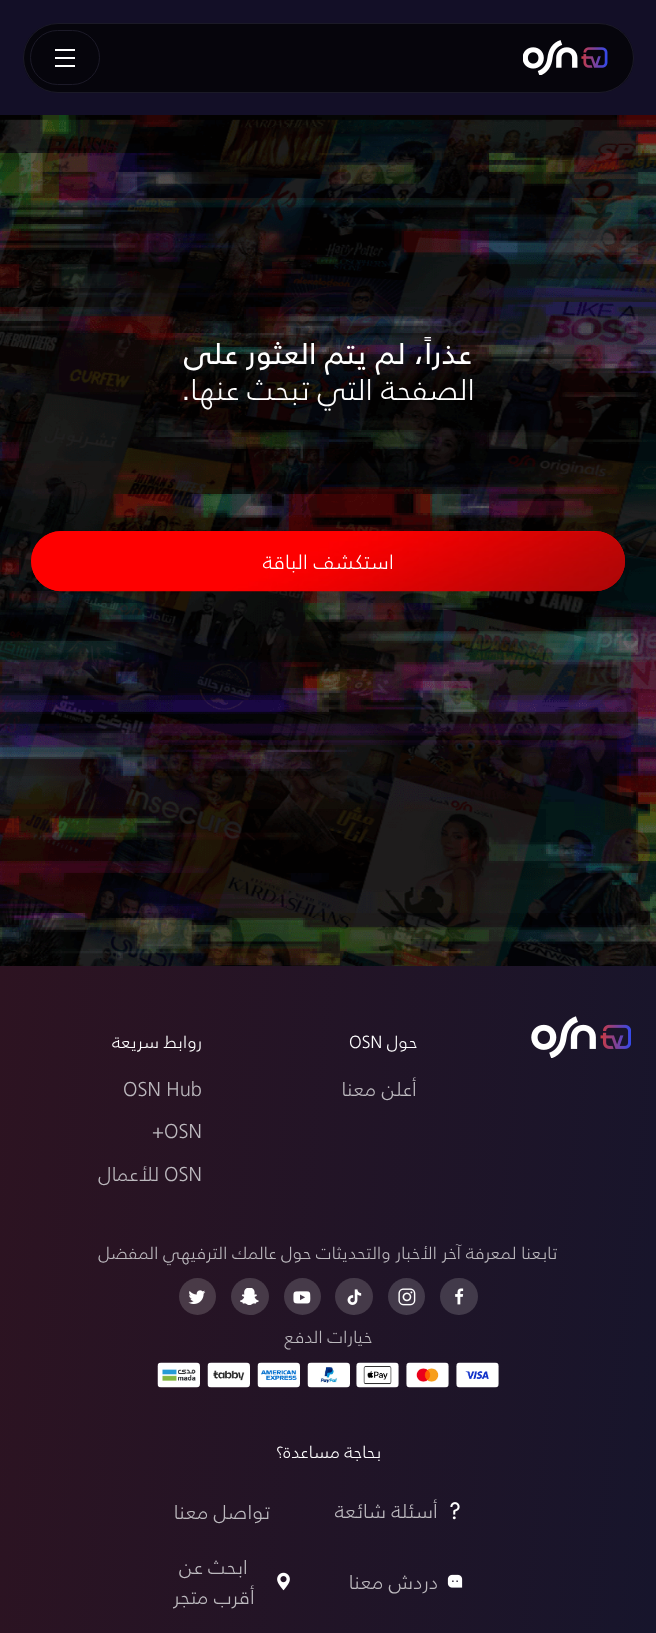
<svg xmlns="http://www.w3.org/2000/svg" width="656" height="1633">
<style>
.a{font:30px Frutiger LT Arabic;direction:rtl;fill:#fff}
.b{font:300 30px Frutiger LT Arabic;direction:rtl;fill:#fff}
.c{font:30px Liberation Sans;direction:rtl;fill:#fff}
.d{font:300 20.5px 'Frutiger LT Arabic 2';direction:rtl;fill:#fff}
.e{font:300 17.5px 'Frutiger LT Arabic 2';direction:rtl;fill:#fff}
.f{font:300 17.5px 'Frutiger LT Arabic 2';fill:#fff}
.g{font:300 20px 'Frutiger LT Arabic 2';direction:rtl;fill:#bcb9be}
.h{font:300 20px 'Frutiger LT Arabic 2';fill:#bcb9be}
.i{font:300 17.5px 'Frutiger LT Arabic 2';direction:rtl;fill:#bcb9be}
</style>
<defs>
<linearGradient id="g1" gradientUnits="userSpaceOnUse" x1="-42" y1="1369" x2="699" y2="1446"><stop offset="0" stop-color="#2d1321"/><stop offset="1" stop-color="#16152c"/></linearGradient>
</defs>
<rect width="100%" height="100%" fill="#130f27"/>
<rect fill="#06050c" x="23" y="23" width="611" height="70" rx="35"/>
<rect fill="none" stroke="#3d395166" x="23.5" y="23.5" width="610" height="69" rx="34.5"/>
<image href="1.png" x="523" y="40" width="85" height="35"/>
<rect fill="none" stroke="#1c1a28" x="30.5" y="30.5" width="69" height="54" rx="27"/>
<path fill="#fff" d="M55 49h20v2H55z"/>
<path fill="#fff" d="M55 57h20v2H55z"/>
<path fill="#fff" d="M55 65h20v2H55z"/>
<image href="2.png" x="0" y="115" width="656" height="851"/>
<rect fill="#f00" x="31" y="531" width="594" height="60" rx="30"/>
<image href="3.png" x="31" y="531" width="595" height="61"/>
<path fill="url(#g1)" d="M0 966h656v667H0z"/>
<image href="4.png" x="531" y="1016" width="100" height="42"/>
<rect fill="#423a4a" x="440" y="1278" width="38" height="37" rx="18.5"/>
<image href="5.png" x="455" y="1288" width="9" height="17"/>
<circle fill="#433a4a" cx="406.5" cy="1296.5" r="18.5"/>
<image href="6.png" x="398" y="1288" width="18" height="18"/>
<rect fill="#453a49" x="335" y="1278" width="38" height="37" rx="18.5"/>
<image href="7.png" x="347" y="1289" width="15" height="16"/>
<circle fill="#463a49" cx="302.5" cy="1296.5" r="18.5"/>
<image href="8.png" x="293" y="1291" width="18" height="13"/>
<rect fill="#473a48" x="231" y="1278" width="38" height="37" rx="18.5"/>
<image href="9.png" x="240" y="1288" width="19" height="17"/>
<circle fill="#493a47" cx="197.5" cy="1296.5" r="18.5"/>
<image href="10.png" x="188" y="1290" width="18" height="14"/>
<image href="11.png" x="456" y="1362" width="43" height="26"/>
<image href="12.png" x="406" y="1362" width="43" height="26"/>
<image href="13.png" x="356" y="1362" width="43" height="26"/>
<image href="14.png" x="307" y="1362" width="43" height="26"/>
<image href="15.png" x="257" y="1362" width="43" height="26"/>
<image href="16.png" x="207" y="1362" width="43" height="26"/>
<image href="17.png" x="157" y="1362" width="43" height="26"/>
<image href="18.png" x="450" y="1502" width="10" height="18"/>
<image href="19.png" x="447" y="1574" width="16" height="14"/>
<image href="20.png" x="277" y="1572" width="13" height="19"/>
<text class="a" x="472" y="364">عذراً، لم يتم العثور على</text>
<text class="b" x="475" y="400">الصفحة التي تبحث عنها</text>
<text class="c" x="190" y="400">.</text>
<text class="d" x="394" y="569">استكشف الباقة</text>
<text class="e" x="417" y="1048">حول</text>
<text class="f" x="349" y="1048">OSN</text>
<text class="g" x="417" y="1096">أعلن معنا</text>
<text class="e" x="202" y="1048">روابط سريعة</text>
<text class="h" x="123" y="1096">OSN Hub</text>
<text class="h" x="152" y="1138">+OSN</text>
<text class="h" x="164" y="1181">OSN</text>
<text class="g" x="159" y="1181">للأعمال</text>
<text class="i" x="557" y="1259">تابعنا لمعرفة آخر الأخبار والتحديثات حول عالمك الترفيهي المفضل</text>
<text class="i" x="372" y="1343">خيارات الدفع</text>
<text class="e" x="381" y="1458">بحاجة مساعدة؟</text>
<text class="g" x="438" y="1518">أسئلة شائعة</text>
<text class="g" x="270" y="1519">تواصل معنا</text>
<text class="g" x="438" y="1589">دردش معنا</text>
<text class="g" x="248" y="1574">ابحث عن</text>
<text class="g" x="255" y="1604">أقرب متجر</text>
</svg>
